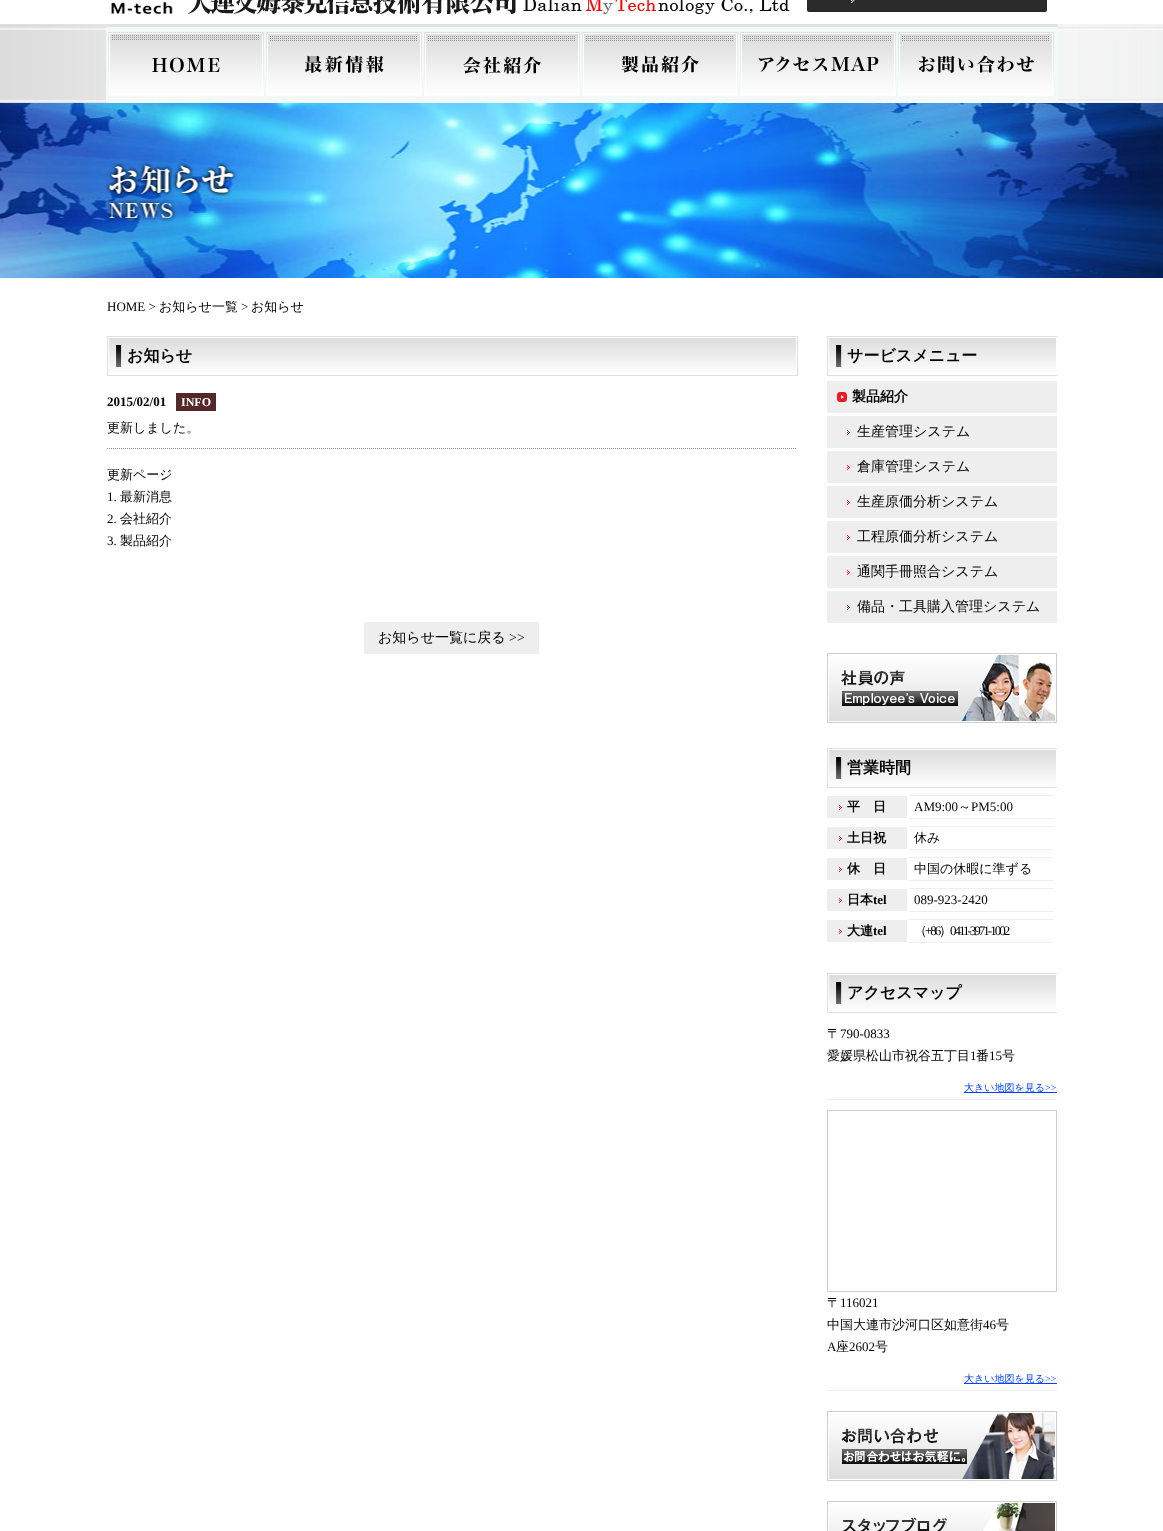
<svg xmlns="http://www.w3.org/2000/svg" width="1163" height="1531">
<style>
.a{font:13px Liberation Serif;fill:#000}
.b{font:500 13px WenQuanYi Zen Hei;fill:#000}
.c{font:bold 16px WenQuanYi Zen Hei;fill:#000}
.d{font:bold 13px Liberation Serif;fill:#000}
.e{font:bold 12px Liberation Serif;fill:#fff}
.f{font:500 14px WenQuanYi Zen Hei;fill:#000}
.g{font:14px Liberation Serif;fill:#000}
.h{font:bold 14px WenQuanYi Zen Hei;fill:#000}
.i{font:bold 13px WenQuanYi Zen Hei;fill:#000}
.j{font:500 13px WenQuanYi Zen Hei;letter-spacing:-2px;fill:#000}
.k{font:13px Liberation Serif;letter-spacing:-2px;fill:#000}
.l{font:500 10px WenQuanYi Zen Hei;fill:#0042ff}
.m{font:10px Liberation Serif;fill:#0042ff}
</style>
<rect width="100%" height="100%" fill="#fff"/>
<image href="1.png" x="111" y="0" width="679" height="14"/>
<image href="2.png" x="807" y="0" width="240" height="12"/>
<image href="3.png" x="0" y="24" width="1163" height="79"/>
<path fill="#f4f8f7" d="M106 27h952v76H106z"/>
<path fill="#e3e3e3" d="M106 24h952v3H106z"/>
<image href="4.png" x="108" y="32" width="156" height="64"/>
<image href="5.png" x="266" y="32" width="156" height="64"/>
<image href="6.png" x="424" y="32" width="156" height="64"/>
<image href="7.png" x="582" y="32" width="156" height="64"/>
<image href="8.png" x="740" y="32" width="156" height="64"/>
<image href="9.png" x="898" y="32" width="156" height="64"/>
<image href="10.png" x="0" y="103" width="1163" height="175"/>
<image href="11.png" x="107" y="336" width="691" height="40"/>
<path fill="#542828" d="M176 393h40v18H176z"/>
<path fill="none" stroke="#8d8d8d" stroke-dasharray="1 1" d="M107 448.5h690"/>
<path fill="#eee" d="M364 622h175v32H364z"/>
<image href="12.png" x="827" y="336" width="230" height="40"/>
<path fill="#eee" d="M827 381h230v32H827z"/>
<image href="13.png" x="837" y="392" width="10" height="10"/>
<path fill="#eee" d="M827 416h230v32H827z"/>
<image href="14.png" x="847" y="430" width="3" height="5"/>
<path fill="#eee" d="M827 451h230v32H827z"/>
<image href="14.png" x="847" y="465" width="3" height="5"/>
<path fill="#eee" d="M827 486h230v32H827z"/>
<image href="14.png" x="847" y="500" width="3" height="5"/>
<path fill="#eee" d="M827 521h230v32H827z"/>
<image href="14.png" x="847" y="535" width="3" height="5"/>
<path fill="#eee" d="M827 556h230v32H827z"/>
<image href="14.png" x="847" y="570" width="3" height="5"/>
<path fill="#eee" d="M827 591h230v32H827z"/>
<image href="14.png" x="847" y="605" width="3" height="5"/>
<image href="15.png" x="827" y="653" width="230" height="70"/>
<image href="12.png" x="827" y="748" width="230" height="40"/>
<path fill="#eee" d="M827 796h80v22H827z"/>
<image href="14.png" x="839" y="805" width="3" height="5"/>
<path fill="#eee" d="M909 795h145v1H909z"/>
<path fill="#eee" d="M909 818h145v1H909z"/>
<path fill="#eee" d="M827 827h80v22H827z"/>
<image href="14.png" x="839" y="836" width="3" height="5"/>
<path fill="#eee" d="M909 826h145v1H909z"/>
<path fill="#eee" d="M909 849h145v1H909z"/>
<path fill="#eee" d="M827 858h80v22H827z"/>
<image href="14.png" x="839" y="867" width="3" height="5"/>
<path fill="#eee" d="M909 857h145v1H909z"/>
<path fill="#eee" d="M909 880h145v1H909z"/>
<path fill="#eee" d="M827 889h80v22H827z"/>
<image href="14.png" x="839" y="898" width="3" height="5"/>
<path fill="#eee" d="M909 888h145v1H909z"/>
<path fill="#eee" d="M909 911h145v1H909z"/>
<path fill="#eee" d="M827 920h80v22H827z"/>
<image href="14.png" x="839" y="929" width="3" height="5"/>
<path fill="#eee" d="M909 919h145v1H909z"/>
<path fill="#eee" d="M909 942h145v1H909z"/>
<image href="12.png" x="827" y="973" width="230" height="40"/>
<path fill="#eee" d="M827 1099h230v1H827z"/>
<path fill="#0042ff" d="M964 1092h93v1H964z"/>
<path fill="none" stroke="#ccc" d="M827.5 1110.5h229v181H827.5z"/>
<path fill="#eee" d="M827 1390h230v1H827z"/>
<path fill="#0042ff" d="M964 1383h93v1H964z"/>
<image href="16.png" x="827" y="1411" width="230" height="70"/>
<image href="17.png" x="827" y="1501" width="230" height="30"/>
<text class="a" x="107" y="311">HOME &gt;</text>
<text class="b" x="159" y="311">お知らせ一覧</text>
<text class="a" x="241" y="311">&gt;</text>
<text class="b" x="251" y="311">お知らせ</text>
<text class="c" x="127" y="361">お知らせ</text>
<text class="d" x="107" y="406">2015/02/01</text>
<text class="e" x="181" y="406">INFO</text>
<text class="b" x="107" y="432">更新しました。</text>
<text class="b" x="107" y="479">更新ページ</text>
<text class="a" x="107" y="501">1.</text>
<text class="b" x="120" y="501">最新消息</text>
<text class="a" x="107" y="523">2.</text>
<text class="b" x="120" y="523">会社紹介</text>
<text class="a" x="107" y="545">3.</text>
<text class="b" x="120" y="545">製品紹介</text>
<text class="f" x="378" y="642">お知らせ一覧に戻る</text>
<text class="g" x="509" y="642">&gt;&gt;</text>
<text class="c" x="847" y="361">サービスメニュー</text>
<text class="h" x="852" y="401">製品紹介</text>
<text class="f" x="857" y="436">生産管理システム</text>
<text class="f" x="857" y="471">倉庫管理システム</text>
<text class="f" x="857" y="506">生産原価分析システム</text>
<text class="f" x="857" y="541">工程原価分析システム</text>
<text class="f" x="857" y="576">通関手冊照合システム</text>
<text class="f" x="857" y="611">備品・工具購入管理システム</text>
<text class="c" x="847" y="773">営業時間</text>
<text class="i" x="847" y="811">平　日</text>
<text class="a" x="914" y="811">AM9:00</text>
<text class="b" x="958" y="811">～</text>
<text class="a" x="971" y="811">PM5:00</text>
<text class="i" x="847" y="842">土日祝</text>
<text class="b" x="914" y="842">休み</text>
<text class="i" x="847" y="873">休　日</text>
<text class="b" x="914" y="873">中国の休暇に準ずる</text>
<text class="i" x="847" y="904">日本</text>
<text class="d" x="873" y="904">tel</text>
<text class="a" x="914" y="904">089-923-2420</text>
<text class="i" x="847" y="935">大連</text>
<text class="d" x="873" y="935">tel</text>
<text class="j" x="914" y="935">（</text>
<text class="k" x="925" y="935">+86</text>
<text class="j" x="939" y="935">）</text>
<text class="k" x="950" y="935">0411-3971-1002</text>
<text class="c" x="847" y="998">アクセスマップ</text>
<text class="b" x="827" y="1038">〒</text>
<text class="a" x="840" y="1038">790-0833</text>
<text class="b" x="827" y="1060">愛媛県松山市祝谷五丁目</text>
<text class="a" x="970" y="1060">1</text>
<text class="b" x="976" y="1060">番</text>
<text class="a" x="989" y="1060">15</text>
<text class="b" x="1002" y="1060">号</text>
<text class="l" x="964" y="1091">大きい地図を見る</text>
<text class="m" x="1045" y="1091">&gt;&gt;</text>
<text class="b" x="827" y="1307">〒</text>
<text class="a" x="840" y="1307">116021</text>
<text class="b" x="827" y="1329">中国大連市沙河口区如意街</text>
<text class="a" x="983" y="1329">46</text>
<text class="b" x="996" y="1329">号</text>
<text class="a" x="827" y="1351">A</text>
<text class="b" x="836" y="1351">座</text>
<text class="a" x="849" y="1351">2602</text>
<text class="b" x="875" y="1351">号</text>
<text class="l" x="964" y="1382">大きい地図を見る</text>
<text class="m" x="1045" y="1382">&gt;&gt;</text>
</svg>
